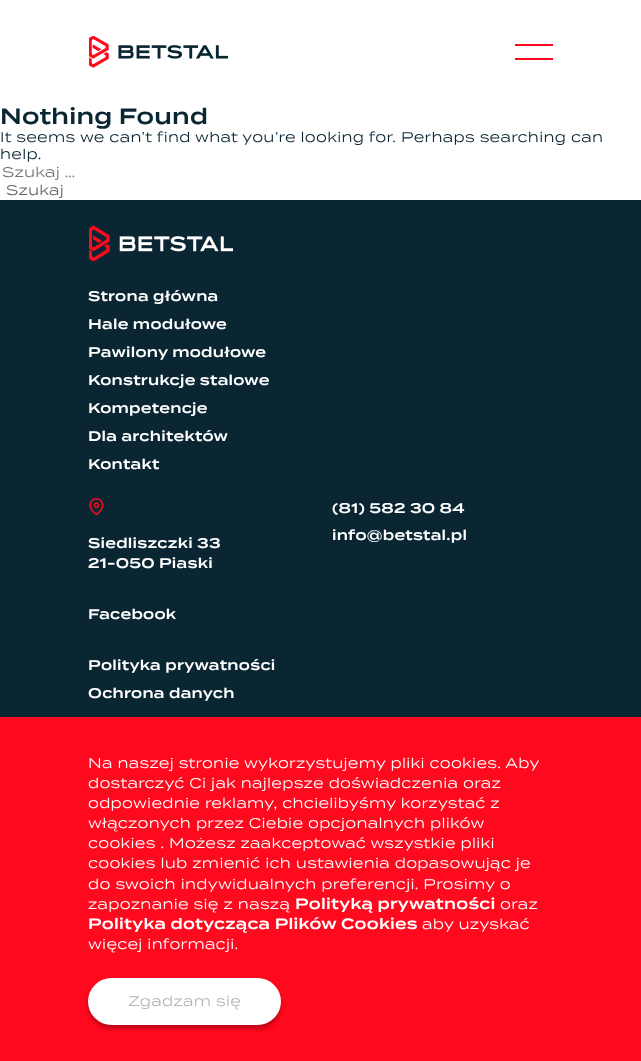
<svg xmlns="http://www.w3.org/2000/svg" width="641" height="1061">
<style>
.a{font:600 22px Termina;letter-spacing:0.28px;fill:#0b2633}
.b{font:14px Termina;letter-spacing:0.28px;fill:#0b2633}
.c{font:14px Termina;letter-spacing:0.28px;fill:#757575}
.d{font:14px Termina;letter-spacing:0.28px;fill:#666}
.e{font:600 14px Termina;letter-spacing:0.28px;fill:#fff}
.f{font:14px Termina;letter-spacing:0.28px;fill:#fff}
.g{font:600 15px Termina;letter-spacing:0.28px;fill:#fff}
.h{font:14px Termina;letter-spacing:0.28px;fill:#b5b5b5}
</style>
<rect width="100%" height="100%" fill="#fff"/>
<image href="1.png" x="89" y="36" width="139" height="32"/>
<path fill="#ff091e" d="M515 44h38v2H515z"/>
<path fill="#ff091e" d="M515 58h38v2H515z"/>
<path fill="#0b2633" d="M0 200h641v517H0z"/>
<image href="2.png" x="89" y="225" width="144" height="36"/>
<image href="3.png" x="89" y="498" width="15" height="18"/>
<path fill="#ff091e" d="M0 717h641v344H0z"/>
<rect fill="#00000040" filter="blur(2px)" x="88" y="982" width="193" height="47" rx="23.5"/>
<rect fill="#fff" x="88" y="978" width="193" height="47" rx="23.5"/>
<text class="a" x="0" y="124">Nothing Found</text>
<text class="b" x="0" y="142">It seems we can’t find what you’re looking for. Perhaps searching can</text>
<text class="b" x="0" y="159">help.</text>
<text class="c" x="2" y="177">Szukaj …</text>
<text class="d" x="6" y="195">Szukaj</text>
<text class="e" x="88" y="301">Strona główna</text>
<text class="e" x="88" y="329">Hale modułowe</text>
<text class="e" x="88" y="357">Pawilony modułowe</text>
<text class="e" x="88" y="385">Konstrukcje stalowe</text>
<text class="e" x="88" y="413">Kompetencje</text>
<text class="e" x="88" y="441">Dla architektów</text>
<text class="e" x="88" y="469">Kontakt</text>
<text class="e" x="332" y="513">(81) 582 30 84</text>
<text class="e" x="332" y="540">info@betstal.pl</text>
<text class="e" x="88" y="548">Siedliszczki 33</text>
<text class="e" x="88" y="568">21-050 Piaski</text>
<text class="e" x="88" y="619">Facebook</text>
<text class="e" x="88" y="670">Polityka prywatności</text>
<text class="e" x="88" y="698">Ochrona danych</text>
<text class="f" x="88" y="768">Na naszej stronie wykorzystujemy pliki cookies. Aby</text>
<text class="f" x="88" y="788">dostarczyć Ci jak najlepsze doświadczenia oraz</text>
<text class="f" x="88" y="808">odpowiednie reklamy, chcielibyśmy korzystać z</text>
<text class="f" x="88" y="828">włączonych przez Ciebie opcjonalnych plików</text>
<text class="f" x="88" y="848">cookies . Możesz zaakceptować wszystkie pliki</text>
<text class="f" x="88" y="868">cookies lub zmienić ich ustawienia dopasowując je</text>
<text class="f" x="88" y="889">do swoich indywidualnych preferencji. Prosimy o</text>
<text class="f" x="88" y="909">zapoznanie się z naszą</text>
<text class="g" x="295" y="909">Polityką prywatności</text>
<text class="f" x="500" y="909">oraz</text>
<text class="g" x="88" y="929">Polityka dotycząca Plików Cookies</text>
<text class="f" x="422" y="929">aby uzyskać</text>
<text class="f" x="88" y="949">więcej informacji.</text>
<text class="h" x="128" y="1006">Zgadzam się</text>
</svg>
